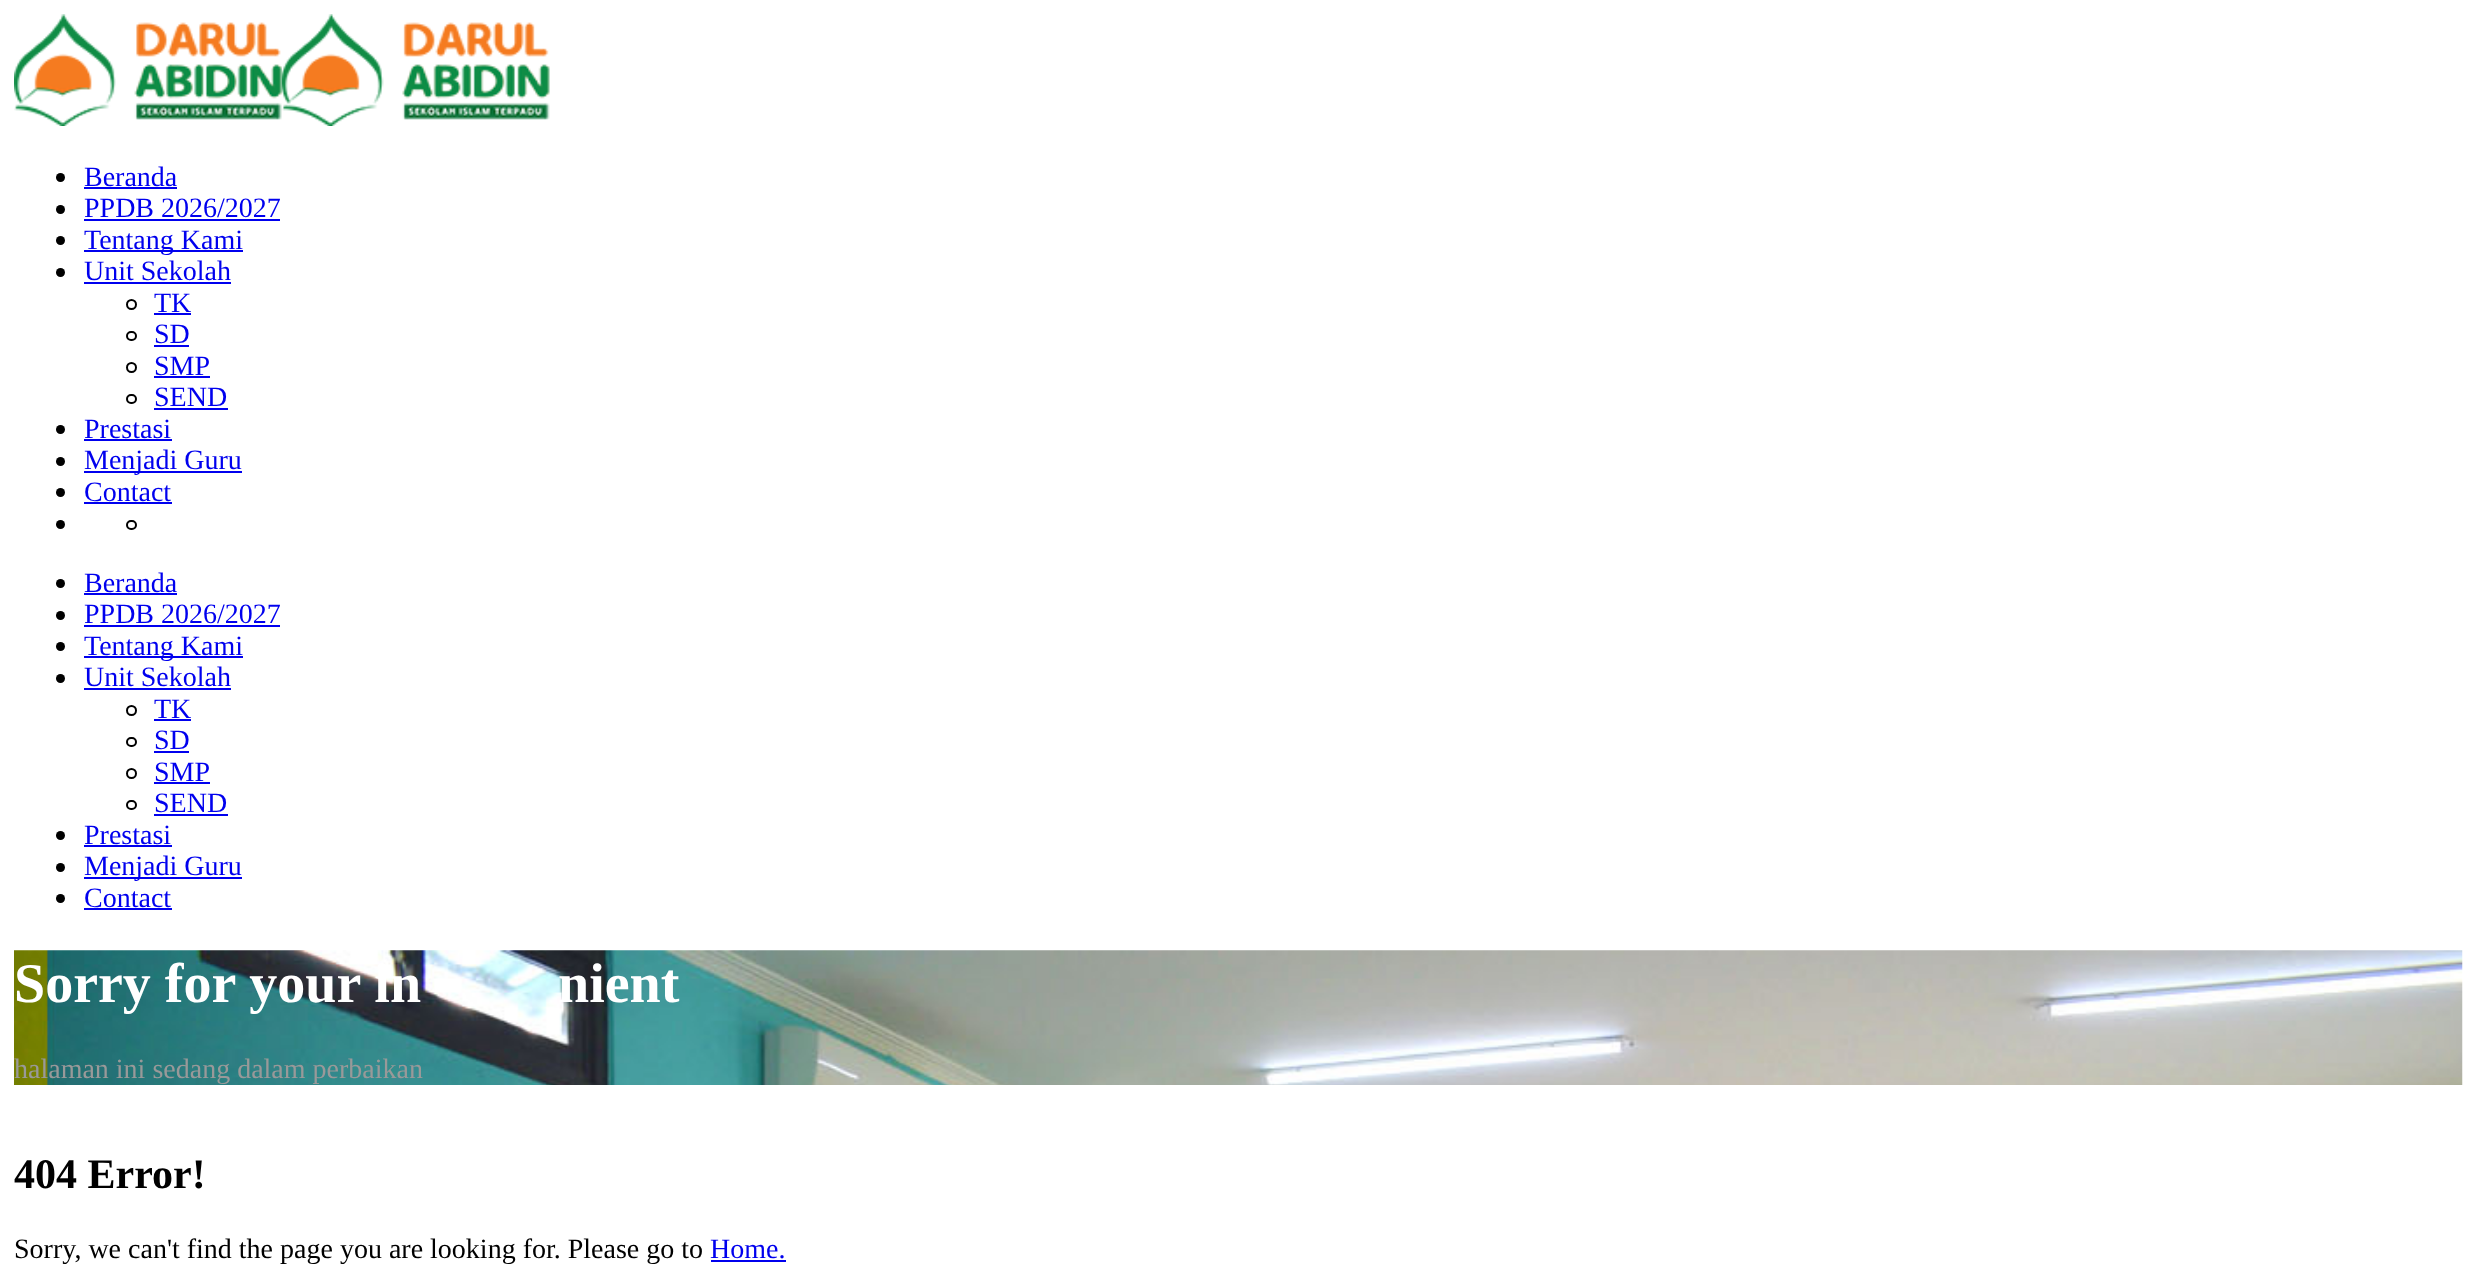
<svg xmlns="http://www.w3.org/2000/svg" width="2476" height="1287">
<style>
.a{font:28px Liberation Serif;fill:#00e}
.b{font:bold 56px Liberation Serif;fill:#fff}
.c{font:28px Liberation Serif;fill:#999}
.d{font:bold 42px Liberation Serif;fill:#000}
.e{font:28px Liberation Serif;fill:#000}
</style>
<rect width="100%" height="100%" fill="#fff"/>
<image href="1.png" x="14" y="14" width="268" height="112"/>
<image href="2.png" x="281" y="14" width="269" height="112"/>
<circle fill="#000" cx="60.5" cy="177.5" r="4.5"/>
<path fill="#00e" d="M84 187h93v2H84z"/>
<circle fill="#000" cx="60.5" cy="209.5" r="4.5"/>
<path fill="#00e" d="M84 219h196v2H84z"/>
<circle fill="#000" cx="60.5" cy="240.5" r="4.5"/>
<path fill="#00e" d="M84 250h159v2H84z"/>
<circle fill="#000" cx="60.5" cy="272.5" r="4.5"/>
<path fill="#00e" d="M84 282h147v2H84z"/>
<circle fill="none" stroke="#000" stroke-width="2" cx="131.5" cy="304.5" r="4.5"/>
<path fill="#00e" d="M154 313h37v2H154z"/>
<rect fill="none" stroke="#000" stroke-width="2" x="127" y="332" width="9" height="8" rx="4"/>
<path fill="#00e" d="M154 345h35v2H154z"/>
<circle fill="none" stroke="#000" stroke-width="2" cx="131.5" cy="367.5" r="4.5"/>
<path fill="#00e" d="M154 376h56v2H154z"/>
<rect fill="none" stroke="#000" stroke-width="2" x="127" y="395" width="9" height="8" rx="4"/>
<path fill="#00e" d="M154 408h74v2H154z"/>
<circle fill="#000" cx="60.5" cy="429.5" r="4.5"/>
<path fill="#00e" d="M84 439h88v2H84z"/>
<circle fill="#000" cx="60.5" cy="461.5" r="4.5"/>
<path fill="#00e" d="M84 471h158v2H84z"/>
<circle fill="#000" cx="60.5" cy="492.5" r="4.5"/>
<path fill="#00e" d="M84 502h88v2H84z"/>
<circle fill="#000" cx="60.5" cy="524.5" r="4.5"/>
<rect fill="none" stroke="#000" stroke-width="2" x="127" y="521" width="9" height="8" rx="4"/>
<circle fill="#000" cx="60.5" cy="583.5" r="4.5"/>
<path fill="#00e" d="M84 593h93v2H84z"/>
<circle fill="#000" cx="60.5" cy="615.5" r="4.5"/>
<path fill="#00e" d="M84 625h196v2H84z"/>
<circle fill="#000" cx="60.5" cy="646.5" r="4.5"/>
<path fill="#00e" d="M84 656h159v2H84z"/>
<circle fill="#000" cx="60.5" cy="678.5" r="4.5"/>
<path fill="#00e" d="M84 688h147v2H84z"/>
<circle fill="none" stroke="#000" stroke-width="2" cx="131.5" cy="710.5" r="4.5"/>
<path fill="#00e" d="M154 719h37v2H154z"/>
<rect fill="none" stroke="#000" stroke-width="2" x="127" y="738" width="9" height="8" rx="4"/>
<path fill="#00e" d="M154 751h35v2H154z"/>
<circle fill="none" stroke="#000" stroke-width="2" cx="131.5" cy="773.5" r="4.5"/>
<path fill="#00e" d="M154 782h56v2H154z"/>
<rect fill="none" stroke="#000" stroke-width="2" x="127" y="801" width="9" height="8" rx="4"/>
<path fill="#00e" d="M154 814h74v2H154z"/>
<circle fill="#000" cx="60.5" cy="835.5" r="4.5"/>
<path fill="#00e" d="M84 845h88v2H84z"/>
<circle fill="#000" cx="60.5" cy="867.5" r="4.5"/>
<path fill="#00e" d="M84 877h158v2H84z"/>
<circle fill="#000" cx="60.5" cy="898.5" r="4.5"/>
<path fill="#00e" d="M84 908h88v2H84z"/>
<image href="3.png" x="14" y="950" width="2449" height="135"/>
<path fill="#00e" d="M711 1260h75v2H711z"/>
<text class="a" x="84" y="186">Beranda</text>
<text class="a" x="84" y="217">PPDB 2026/2027</text>
<text class="a" x="84" y="249">Tentang Kami</text>
<text class="a" x="84" y="280">Unit Sekolah</text>
<text class="a" x="154" y="312">TK</text>
<text class="a" x="154" y="343">SD</text>
<text class="a" x="154" y="375">SMP</text>
<text class="a" x="154" y="406">SEND</text>
<text class="a" x="84" y="438">Prestasi</text>
<text class="a" x="84" y="469">Menjadi Guru</text>
<text class="a" x="84" y="501">Contact</text>
<text class="a" x="84" y="592">Beranda</text>
<text class="a" x="84" y="623">PPDB 2026/2027</text>
<text class="a" x="84" y="655">Tentang Kami</text>
<text class="a" x="84" y="686">Unit Sekolah</text>
<text class="a" x="154" y="718">TK</text>
<text class="a" x="154" y="749">SD</text>
<text class="a" x="154" y="781">SMP</text>
<text class="a" x="154" y="812">SEND</text>
<text class="a" x="84" y="844">Prestasi</text>
<text class="a" x="84" y="875">Menjadi Guru</text>
<text class="a" x="84" y="907">Contact</text>
<text class="b" x="14" y="1002">Sorry for your in</text>
<text class="b" x="558" y="1002">nient</text>
<text class="c" x="14" y="1078">halaman ini sedang dalam perbaikan</text>
<text class="d" x="14" y="1188">404 Error!</text>
<text class="e" x="14" y="1258">Sorry, we can't find the page you are looking for. Please go to</text>
<text class="a" x="710" y="1258">Home.</text>
</svg>
